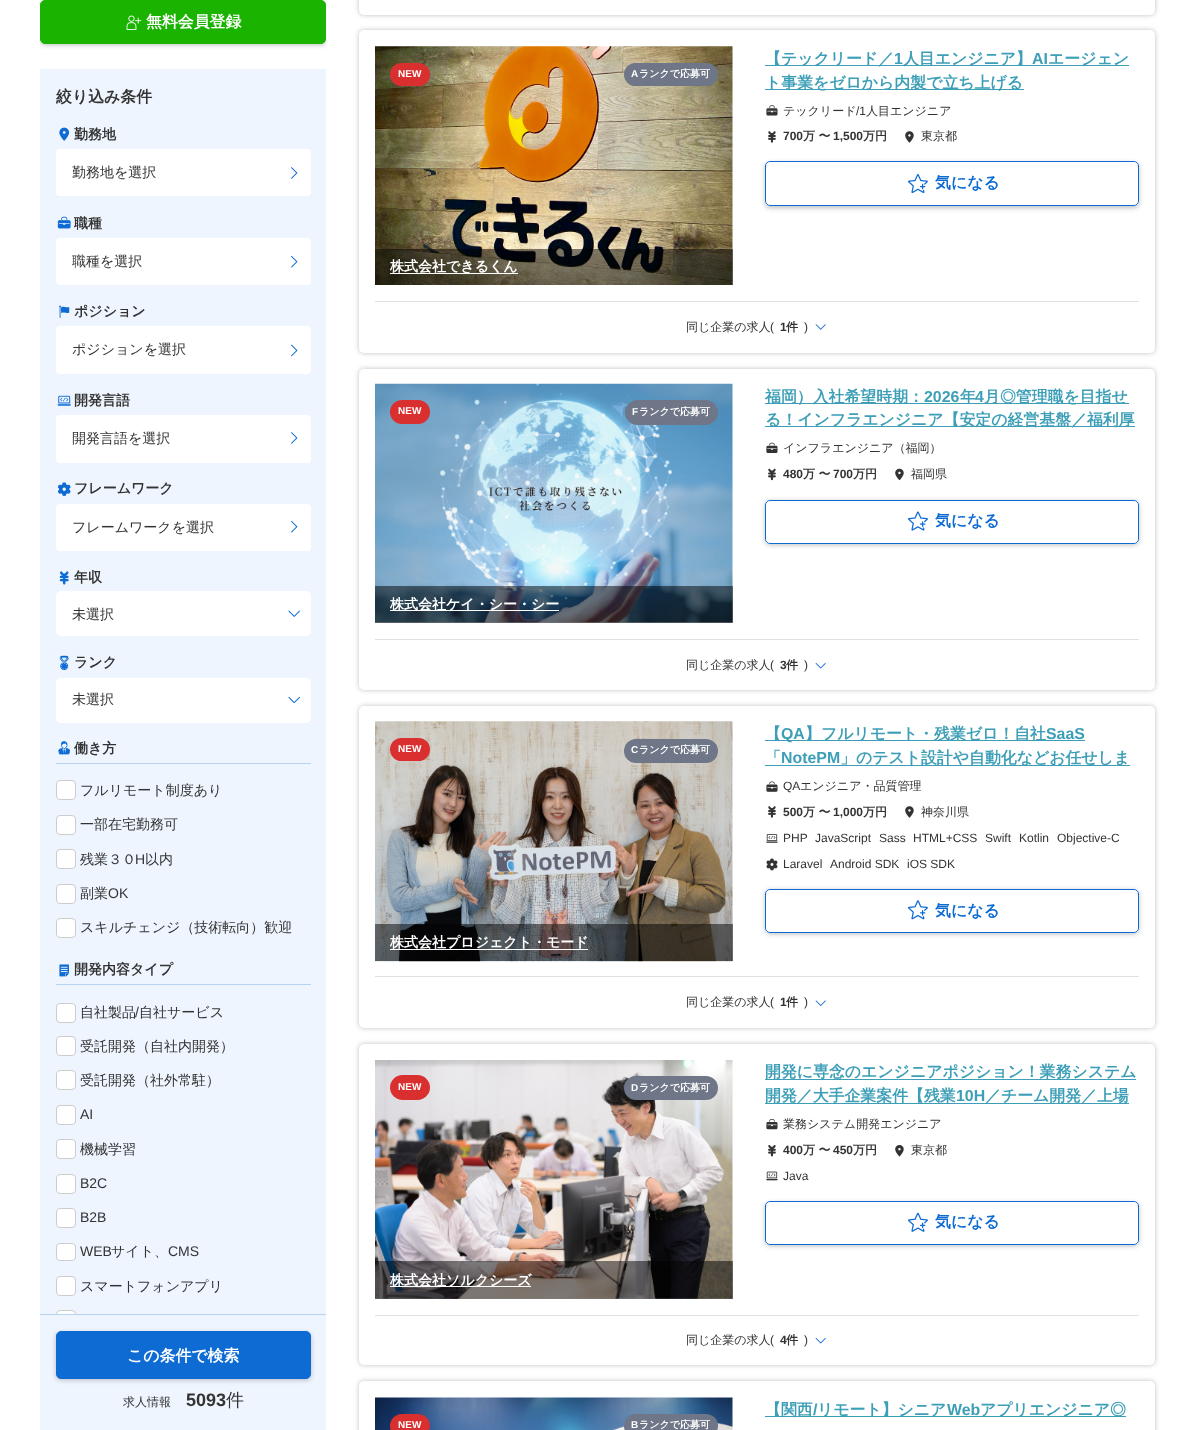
<svg xmlns="http://www.w3.org/2000/svg" width="1194" height="1430">
<style>
.a{font:bold 15.9px WenQuanYi Zen Hei;fill:#fff}
.b{font:bold 15.9px WenQuanYi Zen Hei;fill:#333}
.c{font:bold 14px WenQuanYi Zen Hei;fill:#333}
.d{font:500 14px WenQuanYi Zen Hei;fill:#333}
.e{font:14px Liberation Sans;fill:#333}
.f{font:500 12px WenQuanYi Zen Hei;fill:#333}
.g{font:bold 18px Liberation Sans;fill:#333}
.h{font:500 18px WenQuanYi Zen Hei;fill:#333}
.i{font:bold 10px Liberation Sans;fill:#fff}
.j{font:bold 10px WenQuanYi Zen Hei;fill:#fff}
.k{font:bold 14px WenQuanYi Zen Hei;fill:#fff}
.l{font:bold 15.9px WenQuanYi Zen Hei;fill:#3d9fb7}
.m{font:bold 15.9px Liberation Sans;fill:#3d9fb7}
.n{font:12px Liberation Sans;fill:#333}
.o{font:bold 12px Liberation Sans;fill:#333}
.p{font:bold 12px WenQuanYi Zen Hei;fill:#333}
.q{font:bold 15.9px WenQuanYi Zen Hei;fill:#0d6bd3}
</style>
<defs>
<clipPath id="clip1"><path d="M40 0h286v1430H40z"/></clipPath>
<clipPath id="clip2"><path d="M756 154h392v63h-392zm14 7h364c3 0 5 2 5 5v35c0 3-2 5-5 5h-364c-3 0-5-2-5-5v-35c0-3 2-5 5-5z" clip-rule="evenodd"/></clipPath>
<clipPath id="clip3"><path d="M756 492h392v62h-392zm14 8h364c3 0 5 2 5 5v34c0 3-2 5-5 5h-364c-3 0-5-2-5-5v-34c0-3 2-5 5-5z" clip-rule="evenodd"/></clipPath>
<clipPath id="clip4"><path d="M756 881h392v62h-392zm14 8h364c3 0 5 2 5 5v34c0 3-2 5-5 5h-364c-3 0-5-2-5-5v-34c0-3 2-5 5-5z" clip-rule="evenodd"/></clipPath>
<clipPath id="clip5"><path d="M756 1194h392v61h-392zm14 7h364c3 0 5 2 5 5v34c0 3-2 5-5 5h-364c-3 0-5-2-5-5v-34c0-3 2-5 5-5z" clip-rule="evenodd"/></clipPath>
</defs>
<rect width="100%" height="100%" fill="#fff"/>
<g clip-path="url(#clip1)">
<rect fill="#00000040" filter="blur(2.5px)" x="40" y="1" width="286" height="44" rx="5"/>
</g>
<rect fill="#19b300" stroke="#19b300" x="40.5" y="0.5" width="285" height="43" rx="4.5"/>
<image href="1.png" x="126" y="15" width="16" height="15"/>
<path fill="#eff5ff" d="M40 69h286v1245H40z"/>
<image href="2.png" x="59" y="127" width="11" height="14"/>
<rect fill="#fff" x="56" y="149" width="255" height="47" rx="4"/>
<image href="3.png" x="291" y="167" width="7" height="12"/>
<image href="4.png" x="57" y="216" width="14" height="13"/>
<rect fill="#fff" x="56" y="238" width="255" height="47" rx="4"/>
<image href="5.png" x="291" y="256" width="7" height="12"/>
<image href="6.png" x="59" y="305" width="11" height="13"/>
<rect fill="#fff" x="56" y="326" width="255" height="48" rx="4"/>
<image href="7.png" x="291" y="344" width="7" height="13"/>
<image href="8.png" x="57" y="395" width="14" height="11"/>
<rect fill="#fff" x="56" y="415" width="255" height="48" rx="4"/>
<image href="3.png" x="291" y="432" width="7" height="12"/>
<image href="9.png" x="57" y="482" width="14" height="14"/>
<rect fill="#fff" x="56" y="504" width="255" height="47" rx="4"/>
<image href="5.png" x="291" y="521" width="7" height="12"/>
<image href="10.png" x="59" y="571" width="10" height="14"/>
<rect fill="#fff" x="56" y="591" width="255" height="45" rx="5"/>
<image href="11.png" x="288" y="610" width="12" height="7"/>
<image href="12.png" x="59" y="655" width="10" height="16"/>
<rect fill="#fff" x="56" y="678" width="255" height="45" rx="5"/>
<image href="13.png" x="288" y="696" width="12" height="8"/>
<image href="14.png" x="58" y="741" width="12" height="14"/>
<path fill="#b6d3f3" d="M56 763h255v1H56z"/>
<rect fill="#fff" stroke="#ccc" x="56.5" y="780.5" width="19" height="19" rx="3.5"/>
<rect fill="#fff" stroke="#ccc" x="56.5" y="815.5" width="19" height="19" rx="3.5"/>
<rect fill="#fff" stroke="#ccc" x="56.5" y="849.5" width="19" height="19" rx="3.5"/>
<rect fill="#fff" stroke="#ccc" x="56.5" y="884.5" width="19" height="19" rx="3.5"/>
<rect fill="#fff" stroke="#ccc" x="56.5" y="918.5" width="19" height="19" rx="3.5"/>
<image href="15.png" x="59" y="964" width="10" height="13"/>
<path fill="#b6d3f3" d="M56 984h255v1H56z"/>
<rect fill="#fff" stroke="#ccc" x="56.5" y="1003.5" width="19" height="19" rx="3.5"/>
<rect fill="#fff" stroke="#ccc" x="56.5" y="1036.5" width="19" height="19" rx="3.5"/>
<rect fill="#fff" stroke="#ccc" x="56.5" y="1070.5" width="19" height="19" rx="3.5"/>
<rect fill="#fff" stroke="#ccc" x="56.5" y="1105.5" width="19" height="19" rx="3.5"/>
<rect fill="#fff" stroke="#ccc" x="56.5" y="1139.5" width="19" height="19" rx="3.5"/>
<rect fill="#fff" stroke="#ccc" x="56.5" y="1174.5" width="19" height="19" rx="3.5"/>
<rect fill="#fff" stroke="#ccc" x="56.5" y="1208.5" width="19" height="19" rx="3.5"/>
<rect fill="#fff" stroke="#ccc" x="56.5" y="1243.5" width="19" height="17" rx="3.5"/>
<rect fill="#fff" stroke="#ccc" x="56.5" y="1276.5" width="19" height="19" rx="3.5"/>
<rect fill="#fff" stroke="#ccc" x="56.5" y="1310.5" width="19" height="19" rx="3.5"/>
<path fill="#eff5ff" d="M40 1315h286v115H40z"/>
<path fill="#b6d3f3" d="M40 1314h286v1H40z"/>
<rect fill="#00000040" filter="blur(2.5px)" x="56" y="1333" width="255" height="47" rx="5"/>
<rect fill="#0d6bd3" stroke="#0d6bd3" x="56.5" y="1331.5" width="254" height="47" rx="4.5"/>
<rect fill="#00000040" filter="blur(2.5px)" x="359" y="-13" width="796" height="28" rx="5"/>
<rect fill="#fff" x="359" y="-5" width="796" height="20" rx="5"/>
<rect fill="#00000040" filter="blur(2.5px)" x="359" y="30" width="796" height="323" rx="5"/>
<rect fill="#fff" x="359" y="30" width="796" height="323" rx="5"/>
<image href="16.png" x="375" y="46" width="358" height="239"/>
<rect fill="#da2f2f" x="390" y="63" width="40" height="23" rx="11.5"/>
<rect fill="#6e7687" x="624" y="63" width="94" height="23" rx="11.5"/>
<path fill="#00000080" d="M375 249h358v36H375z"/>
<path fill="#fff" d="M390 273h128v1H390z"/>
<path fill="#3d9fb7" d="M765 65h364v1H765z"/>
<path fill="#3d9fb7" d="M765 89h259v1H765z"/>
<image href="17.png" x="766" y="105" width="12" height="11"/>
<image href="18.png" x="768" y="131" width="8" height="12"/>
<image href="19.png" x="905" y="131" width="9" height="12"/>
<g clip-path="url(#clip2)">
<rect fill="#00000040" filter="blur(2.5px)" x="765" y="163" width="374" height="45" rx="5"/>
</g>
<rect fill="none" stroke="#0d6bd3" x="765.5" y="161.5" width="373" height="44" rx="4.5"/>
<image href="20.png" x="908" y="174" width="20" height="20"/>
<path fill="#dfe0e2" d="M375 301h764v1H375z"/>
<image href="21.png" x="815" y="324" width="11" height="6"/>
<rect fill="#00000040" filter="blur(2.5px)" x="359" y="369" width="796" height="321" rx="5"/>
<rect fill="#fff" x="359" y="369" width="796" height="321" rx="5"/>
<image href="22.png" x="375" y="383" width="358" height="240"/>
<rect fill="#da2f2f" x="390" y="400" width="40" height="24" rx="12"/>
<rect fill="#6e7687" x="625" y="400" width="93" height="25" rx="12.5"/>
<path fill="#00000080" d="M375 586h358v37H375z"/>
<path fill="#fff" d="M390 610h169v1H390z"/>
<path fill="#3d9fb7" d="M765 403h364v1H765z"/>
<path fill="#3d9fb7" d="M765 426h370v1H765z"/>
<image href="23.png" x="766" y="442" width="12" height="11"/>
<image href="24.png" x="768" y="468" width="8" height="13"/>
<image href="25.png" x="895" y="468" width="9" height="13"/>
<g clip-path="url(#clip3)">
<rect fill="#00000040" filter="blur(2.5px)" x="765" y="501" width="374" height="44" rx="5"/>
</g>
<rect fill="none" stroke="#0d6bd3" x="765.5" y="500.5" width="373" height="43" rx="4.5"/>
<image href="26.png" x="908" y="511" width="20" height="20"/>
<path fill="#dfe0e2" d="M375 639h764v1H375z"/>
<image href="27.png" x="815" y="663" width="11" height="6"/>
<rect fill="#00000040" filter="blur(2.5px)" x="359" y="706" width="796" height="322" rx="5"/>
<rect fill="#fff" x="359" y="706" width="796" height="322" rx="5"/>
<image href="28.png" x="375" y="721" width="358" height="241"/>
<rect fill="#da2f2f" x="390" y="738" width="40" height="23" rx="11.5"/>
<rect fill="#6e7687" x="624" y="739" width="94" height="24" rx="12"/>
<path fill="#00000080" d="M375 924h358v37H375z"/>
<path fill="#fff" d="M390 949h198v1H390z"/>
<path fill="#3d9fb7" d="M765 740h320v1H765z"/>
<path fill="#3d9fb7" d="M765 765h365v1H765z"/>
<image href="29.png" x="766" y="781" width="12" height="11"/>
<image href="18.png" x="768" y="806" width="8" height="12"/>
<image href="19.png" x="905" y="806" width="9" height="12"/>
<image href="30.png" x="766" y="834" width="12" height="9"/>
<image href="31.png" x="766" y="858" width="12" height="13"/>
<g clip-path="url(#clip4)">
<rect fill="#00000040" filter="blur(2.5px)" x="765" y="890" width="374" height="44" rx="5"/>
</g>
<rect fill="none" stroke="#0d6bd3" x="765.5" y="889.5" width="373" height="43" rx="4.5"/>
<image href="32.png" x="908" y="900" width="20" height="20"/>
<path fill="#dfe0e2" d="M375 976h764v1H375z"/>
<image href="33.png" x="815" y="1000" width="11" height="6"/>
<rect fill="#00000040" filter="blur(2.5px)" x="359" y="1044" width="796" height="321" rx="5"/>
<rect fill="#fff" x="359" y="1044" width="796" height="321" rx="5"/>
<image href="34.png" x="375" y="1060" width="358" height="239"/>
<rect fill="#da2f2f" x="390" y="1075" width="40" height="25" rx="12.5"/>
<rect fill="#6e7687" x="624" y="1076" width="94" height="24" rx="12"/>
<path fill="#00000080" d="M375 1261h358v38H375z"/>
<path fill="#fff" d="M390 1286h141v1H390z"/>
<path fill="#3d9fb7" d="M765 1079h371v1H765z"/>
<path fill="#3d9fb7" d="M765 1103h364v1H765z"/>
<image href="35.png" x="766" y="1119" width="12" height="11"/>
<image href="36.png" x="768" y="1145" width="8" height="12"/>
<image href="37.png" x="895" y="1145" width="9" height="12"/>
<image href="38.png" x="766" y="1171" width="12" height="10"/>
<g clip-path="url(#clip5)">
<rect fill="#00000040" filter="blur(2.5px)" x="765" y="1203" width="374" height="43" rx="5"/>
</g>
<rect fill="none" stroke="#0d6bd3" x="765.5" y="1201.5" width="373" height="43" rx="4.5"/>
<image href="39.png" x="908" y="1212" width="20" height="20"/>
<path fill="#dfe0e2" d="M375 1315h764v1H375z"/>
<image href="27.png" x="815" y="1338" width="11" height="6"/>
<rect fill="#00000040" filter="blur(2.5px)" x="359" y="1381" width="796" height="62" rx="5"/>
<rect fill="#fff" x="359" y="1381" width="796" height="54" rx="5"/>
<path fill="#3d9fb7" d="M765 1416h361v1H765z"/>
<image href="40.png" x="375" y="1397" width="358" height="33"/>
<rect fill="#da2f2f" x="390" y="1414" width="40" height="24" rx="12"/>
<rect fill="#6e7687" x="624" y="1414" width="94" height="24" rx="12"/>
<text class="a" x="146" y="27">無料会員登録</text>
<text class="b" x="56" y="102">絞り込み条件</text>
<text class="c" x="74" y="139">勤務地</text>
<text class="d" x="72" y="177">勤務地を選択</text>
<text class="c" x="74" y="228">職種</text>
<text class="d" x="72" y="266">職種を選択</text>
<text class="c" x="74" y="316">ポジション</text>
<text class="d" x="72" y="354">ポジションを選択</text>
<text class="c" x="74" y="405">開発言語</text>
<text class="d" x="72" y="443">開発言語を選択</text>
<text class="c" x="74" y="493">フレームワーク</text>
<text class="d" x="72" y="532">フレームワークを選択</text>
<text class="c" x="74" y="582">年収</text>
<text class="d" x="72" y="619">未選択</text>
<text class="c" x="74" y="667">ランク</text>
<text class="d" x="72" y="704">未選択</text>
<text class="c" x="74" y="753">働き方</text>
<text class="d" x="80" y="795">フルリモート制度あり</text>
<text class="d" x="80" y="829">一部在宅勤務可</text>
<text class="d" x="80" y="864">残業３０</text>
<text class="e" x="135" y="864">H</text>
<text class="d" x="145" y="864">以内</text>
<text class="d" x="80" y="898">副業</text>
<text class="e" x="108" y="898">OK</text>
<text class="d" x="80" y="932">スキルチェンジ（技術転向）歓迎</text>
<text class="c" x="74" y="974">開発内容タイプ</text>
<text class="d" x="80" y="1017">自社製品</text>
<text class="e" x="135" y="1017">/</text>
<text class="d" x="139" y="1017">自社サービス</text>
<text class="d" x="80" y="1051">受託開発（自社内開発）</text>
<text class="d" x="80" y="1085">受託開発（社外常駐）</text>
<text class="e" x="80" y="1119">AI</text>
<text class="d" x="80" y="1154">機械学習</text>
<text class="e" x="80" y="1188">B2C</text>
<text class="e" x="80" y="1222">B2B</text>
<text class="e" x="80" y="1256">WEB</text>
<text class="d" x="111" y="1256">サイト、</text>
<text class="e" x="168" y="1256">CMS</text>
<text class="d" x="80" y="1291">スマートフォンアプリ</text>
<text class="a" x="127" y="1361">この条件で検索</text>
<text class="f" x="123" y="1406">求人情報</text>
<text class="g" x="186" y="1406">5093</text>
<text class="h" x="226" y="1406">件</text>
<text class="i" x="398" y="77">NEW</text>
<text class="i" x="631" y="77">A</text>
<text class="j" x="639" y="77">ランクで応募可</text>
<text class="k" x="390" y="271">株式会社できるくん</text>
<text class="l" x="765" y="64">【テックリード／</text>
<text class="m" x="894" y="64">1</text>
<text class="l" x="903" y="64">人目エンジニア】</text>
<text class="m" x="1032" y="64">AI</text>
<text class="l" x="1048" y="64">エージェン</text>
<text class="l" x="765" y="88">ト事業をゼロから内製で立ち上げる</text>
<text class="f" x="783" y="115">テックリード</text>
<text class="n" x="856" y="115">/1</text>
<text class="f" x="866" y="115">人目エンジニア</text>
<text class="o" x="783" y="140">700</text>
<text class="p" x="803" y="140">万 〜</text>
<text class="o" x="833" y="140">1,500</text>
<text class="p" x="863" y="140">万円</text>
<text class="f" x="921" y="140">東京都</text>
<text class="q" x="935" y="188">気になる</text>
<text class="f" x="686" y="331">同じ企業の求人</text>
<text class="n" x="770" y="331">(</text>
<text class="o" x="780" y="331">1</text>
<text class="p" x="786" y="331">件</text>
<text class="n" x="804" y="331">)</text>
<text class="i" x="398" y="414">NEW</text>
<text class="i" x="632" y="415">F</text>
<text class="j" x="639" y="415">ランクで応募可</text>
<text class="k" x="390" y="609">株式会社ケイ・シー・シー</text>
<text class="l" x="765" y="402">福岡）入社希望時期：</text>
<text class="m" x="924" y="402">2026</text>
<text class="l" x="960" y="402">年</text>
<text class="m" x="975" y="402">4</text>
<text class="l" x="984" y="402">月◎管理職を目指せ</text>
<text class="l" x="765" y="425">る！インフラエンジニア【安定の経営基盤／福利厚</text>
<text class="f" x="783" y="452">インフラエンジニア（福岡）</text>
<text class="o" x="783" y="478">480</text>
<text class="p" x="803" y="478">万 〜</text>
<text class="o" x="833" y="478">700</text>
<text class="p" x="853" y="478">万円</text>
<text class="f" x="911" y="478">福岡県</text>
<text class="q" x="935" y="526">気になる</text>
<text class="f" x="686" y="669">同じ企業の求人</text>
<text class="n" x="770" y="669">(</text>
<text class="o" x="780" y="669">3</text>
<text class="p" x="786" y="669">件</text>
<text class="n" x="804" y="669">)</text>
<text class="i" x="398" y="752">NEW</text>
<text class="i" x="631" y="753">C</text>
<text class="j" x="639" y="753">ランクで応募可</text>
<text class="k" x="390" y="947">株式会社プロジェクト・モード</text>
<text class="l" x="765" y="739">【</text>
<text class="m" x="781" y="739">QA</text>
<text class="l" x="805" y="739">】フルリモート・残業ゼロ！自社</text>
<text class="m" x="1046" y="739">SaaS</text>
<text class="l" x="765" y="763">「</text>
<text class="m" x="781" y="763">NotePM</text>
<text class="l" x="840" y="763">」のテスト設計や自動化などお任せしま</text>
<text class="n" x="783" y="790">QA</text>
<text class="f" x="800" y="790">エンジニア・品質管理</text>
<text class="o" x="783" y="816">500</text>
<text class="p" x="803" y="816">万 〜</text>
<text class="o" x="833" y="816">1,000</text>
<text class="p" x="863" y="816">万円</text>
<text class="f" x="921" y="816">神奈川県</text>
<text class="n" x="783" y="842">PHP</text>
<text class="n" x="815" y="842">JavaScript</text>
<text class="n" x="879" y="842">Sass</text>
<text class="n" x="913" y="842">HTML+CSS</text>
<text class="n" x="985" y="842">Swift</text>
<text class="n" x="1019" y="842">Kotlin</text>
<text class="n" x="1057" y="842">Objective-C</text>
<text class="n" x="783" y="868">Laravel</text>
<text class="n" x="830" y="868">Android SDK</text>
<text class="n" x="907" y="868">iOS SDK</text>
<text class="q" x="935" y="916">気になる</text>
<text class="f" x="686" y="1006">同じ企業の求人</text>
<text class="n" x="770" y="1006">(</text>
<text class="o" x="780" y="1006">1</text>
<text class="p" x="786" y="1006">件</text>
<text class="n" x="804" y="1006">)</text>
<text class="i" x="398" y="1090">NEW</text>
<text class="i" x="631" y="1091">D</text>
<text class="j" x="639" y="1091">ランクで応募可</text>
<text class="k" x="390" y="1285">株式会社ソルクシーズ</text>
<text class="l" x="765" y="1077">開発に専念のエンジニアポジション！業務システム</text>
<text class="l" x="765" y="1101">開発／大手企業案件【残業</text>
<text class="m" x="956" y="1101">10H</text>
<text class="l" x="985" y="1101">／チーム開発／上場</text>
<text class="f" x="783" y="1128">業務システム開発エンジニア</text>
<text class="o" x="783" y="1154">400</text>
<text class="p" x="803" y="1154">万 〜</text>
<text class="o" x="833" y="1154">450</text>
<text class="p" x="853" y="1154">万円</text>
<text class="f" x="911" y="1154">東京都</text>
<text class="n" x="783" y="1180">Java</text>
<text class="q" x="935" y="1227">気になる</text>
<text class="f" x="686" y="1344">同じ企業の求人</text>
<text class="n" x="770" y="1344">(</text>
<text class="o" x="780" y="1344">4</text>
<text class="p" x="786" y="1344">件</text>
<text class="n" x="804" y="1344">)</text>
<text class="l" x="765" y="1415">【関西</text>
<text class="m" x="813" y="1415">/</text>
<text class="l" x="817" y="1415">リモート】シニア</text>
<text class="m" x="947" y="1415">Web</text>
<text class="l" x="980" y="1415">アプリエンジニア◎</text>
<text class="i" x="398" y="1428">NEW</text>
<text class="i" x="631" y="1428">B</text>
<text class="j" x="639" y="1428">ランクで応募可</text>
</svg>
